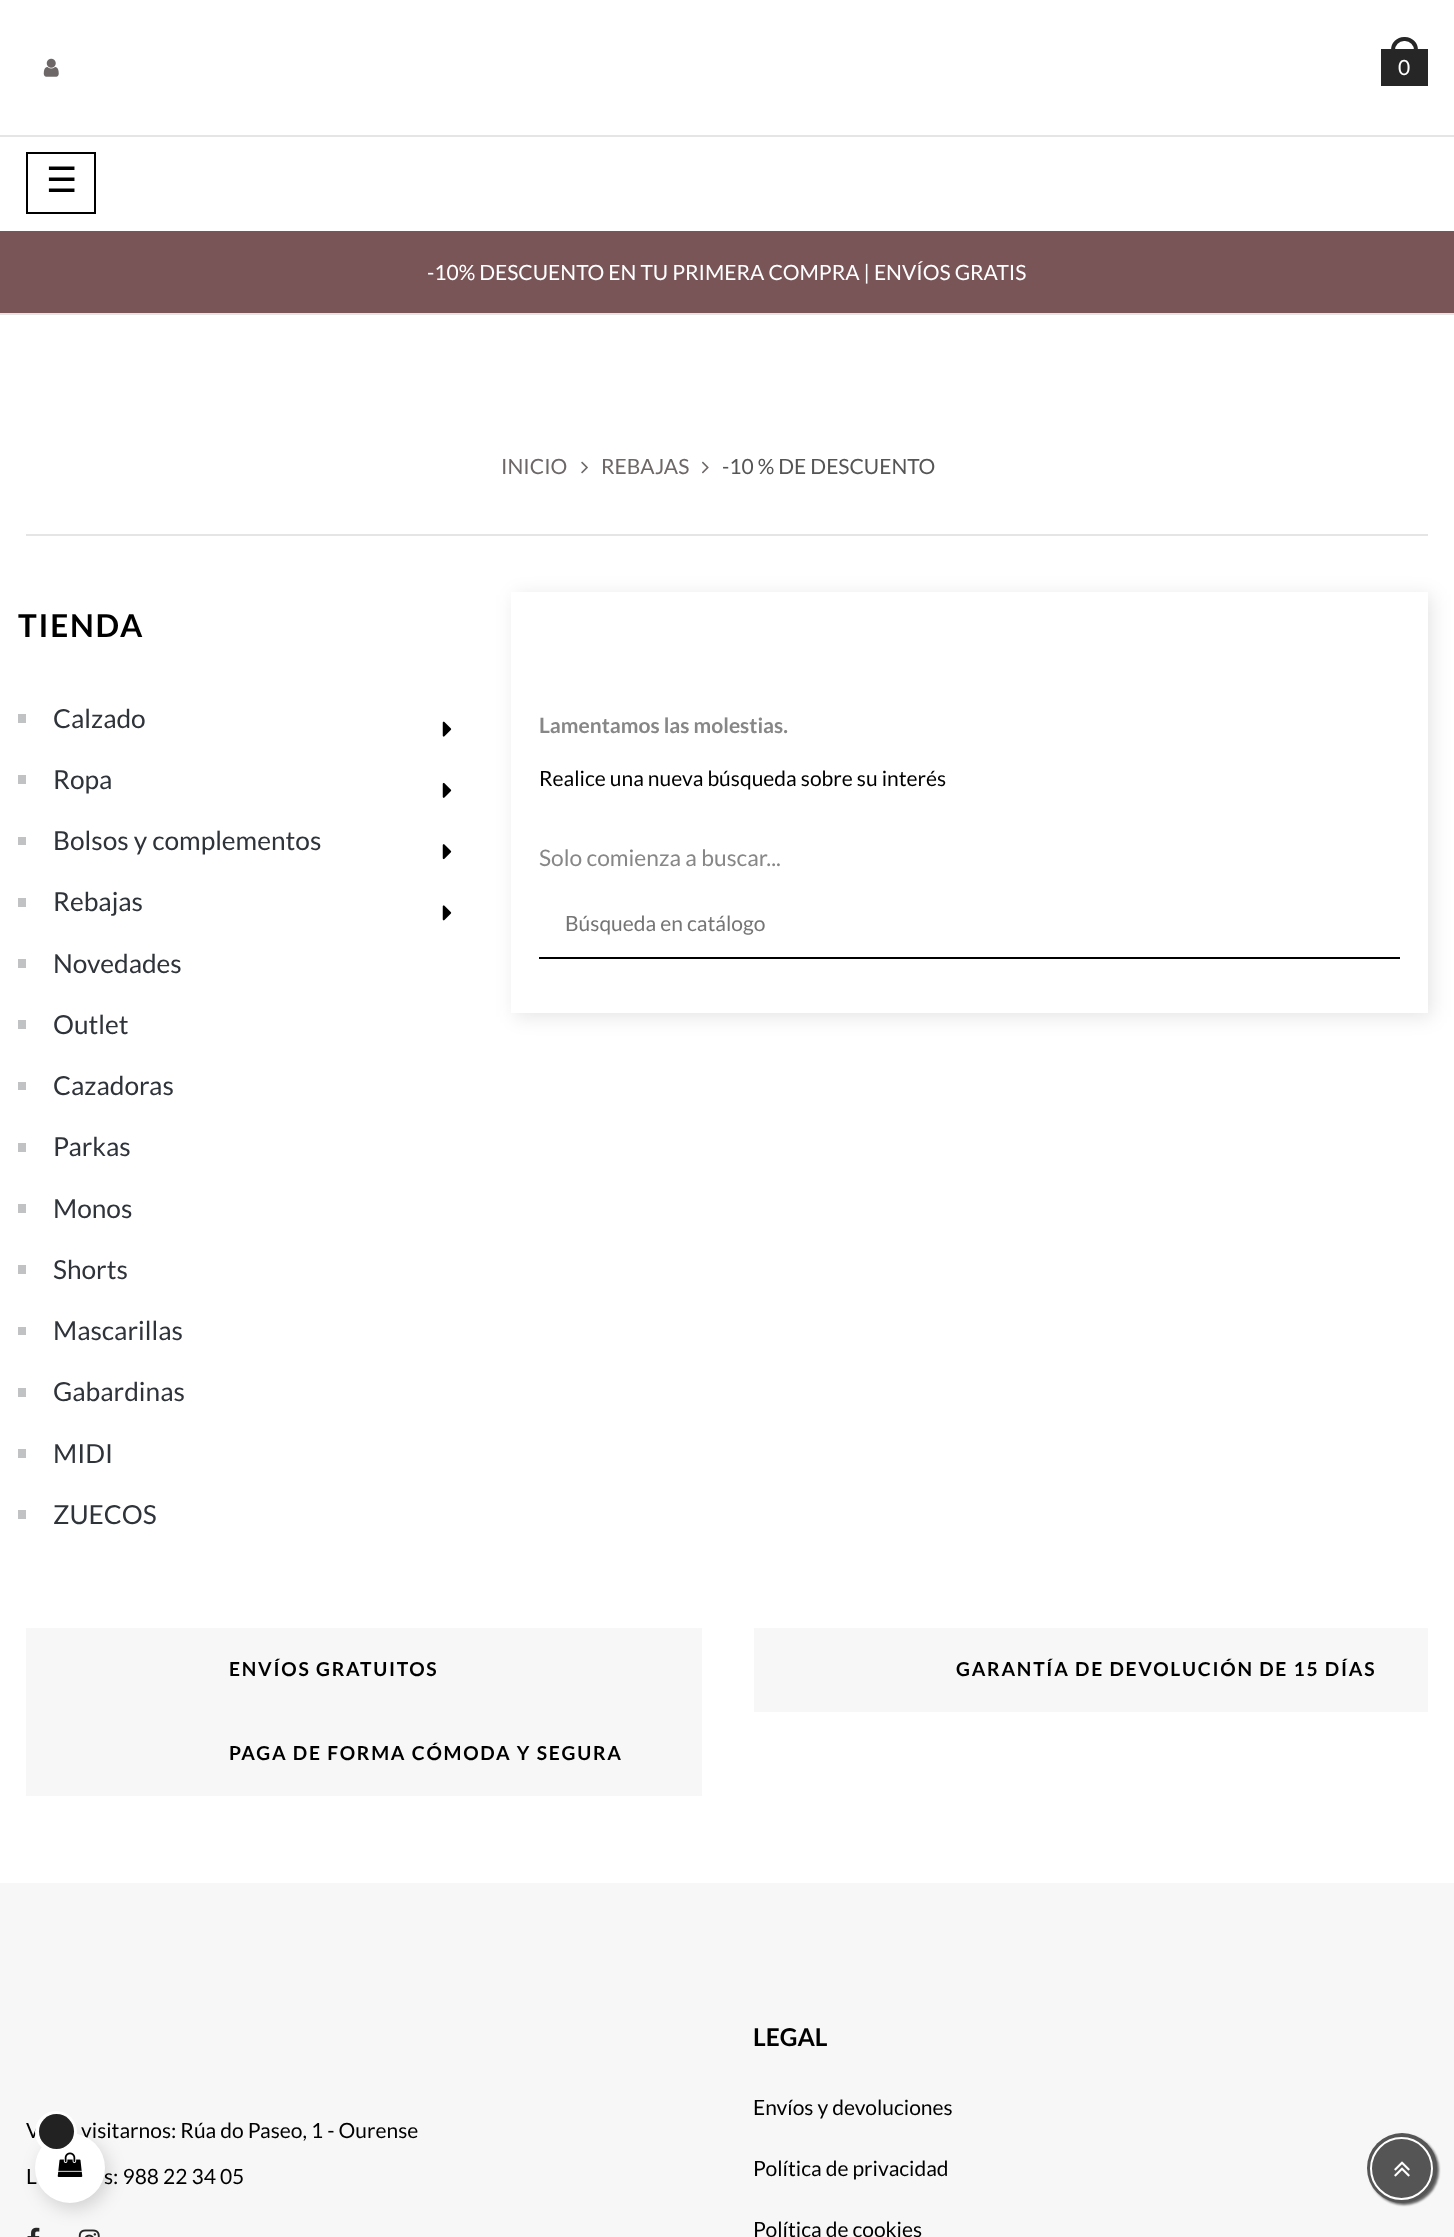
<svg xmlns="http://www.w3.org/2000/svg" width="1454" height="2237">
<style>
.a{font:21px Lato;fill:#fff}
.b{font:35px DejaVu Sans;fill:#000}
.c{font:21px Lato;fill:#6d6767}
.d{font:21px Lato;fill:#555}
.e{font:bold 31.5px Lato;letter-spacing:1.75px;fill:#000}
.f{font:26.25px Lato;fill:#2f333a}
.g{font:bold 21px Lato;fill:#878787}
.h{font:21px Lato;fill:#000}
.i{font:22.75px Lato;fill:#878787}
.j{font:21px Lato;fill:#757575}
.k{font:bold 19.25px Lato;letter-spacing:1.75px;fill:#000}
.l{font:bold 24.5px Lato;fill:#000}
</style>
<defs>
<clipPath id="clip1"><path d="M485 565h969v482h-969zm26 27h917v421h-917z" clip-rule="evenodd"/></clipPath>
</defs>
<rect width="100%" height="100%" fill="#fff"/>
<image href="1.png" x="43" y="58" width="16" height="19"/>
<rect fill="none" stroke="#262626" stroke-width="4" x="1393" y="39" width="23" height="22" rx="11"/>
<path fill="#262626" d="M1381 49h47v37H1381z"/>
<path fill="#e5e5e5" d="M0 135h1454v2H0z"/>
<path fill="none" stroke="#000" stroke-width="2" d="M27 153h68v60H27z"/>
<path fill="#795558" d="M0 231h1454v82H0z"/>
<path fill="#e5e5e5" d="M0 313h1454v2H0z"/>
<path fill="#e5e5e5" d="M26 534h1402v2H26z"/>
<image href="2.png" x="581" y="461" width="7" height="13"/>
<image href="3.png" x="702" y="461" width="7" height="13"/>
<path fill="#c1c2c4" d="M18 714h8v9H18z"/>
<image href="4.png" x="442" y="721" width="10" height="16"/>
<path fill="#c1c2c4" d="M18 775h8v9H18z"/>
<image href="5.png" x="442" y="782" width="10" height="16"/>
<path fill="#c1c2c4" d="M18 837h8v8H18z"/>
<image href="6.png" x="442" y="844" width="10" height="16"/>
<path fill="#c1c2c4" d="M18 898h8v9H18z"/>
<image href="7.png" x="442" y="905" width="10" height="16"/>
<path fill="#c1c2c4" d="M18 959h8v9H18z"/>
<path fill="#c1c2c4" d="M18 1020h8v9H18z"/>
<path fill="#c1c2c4" d="M18 1082h8v8H18z"/>
<path fill="#c1c2c4" d="M18 1143h8v9H18z"/>
<path fill="#c1c2c4" d="M18 1204h8v9H18z"/>
<path fill="#c1c2c4" d="M18 1265h8v9H18z"/>
<path fill="#c1c2c4" d="M18 1327h8v8H18z"/>
<path fill="#c1c2c4" d="M18 1388h8v9H18z"/>
<path fill="#c1c2c4" d="M18 1449h8v9H18z"/>
<path fill="#c1c2c4" d="M18 1510h8v9H18z"/>
<g clip-path="url(#clip1)">
<path fill="#0000001a" filter="blur(9.5px)" d="M515 595h917v422H515z"/>
</g>
<path fill="#000" d="M539 957h861v2H539z"/>
<path fill="#f7f7f7" d="M0 1883h1454v354H0z"/>
<path fill="#f7f7f7" d="M26 1628h676v168H26z"/>
<path fill="#f7f7f7" d="M754 1628h674v84H754z"/>
<image href="8.png" x="27" y="2227" width="13" height="10"/>
<image href="9.png" x="78" y="2229" width="22" height="8"/>
<rect fill="#00000099" filter="blur(1px)" x="1369" y="2135" width="70" height="70" rx="35"/>
<circle fill="#555" cx="1402" cy="2168" r="35"/>
<circle fill="none" stroke="#fff" stroke-width="2" cx="1401.5" cy="2168.5" r="30.5"/>
<image href="10.png" x="1394" y="2161" width="16" height="16"/>
<rect fill="#00000026" filter="blur(9px)" x="39" y="2139" width="70" height="70" rx="35"/>
<text class="a" x="1398" y="75">0</text>
<text class="b" x="46" y="192">☰</text>
<text class="a" x="427" y="280">-10% DESCUENTO EN TU PRIMERA COMPRA | ENVÍOS GRATIS</text>
<text class="c" x="501" y="474">INICIO</text>
<text class="c" x="601" y="474">REBAJAS</text>
<text class="d" x="722" y="474">-10 % DE DESCUENTO</text>
<text class="e" x="18" y="637">TIENDA</text>
<text class="f" x="53" y="728">Calzado</text>
<text class="f" x="53" y="789">Ropa</text>
<text class="f" x="53" y="850">Bolsos y complementos</text>
<text class="f" x="53" y="911">Rebajas</text>
<text class="f" x="53" y="973">Novedades</text>
<text class="f" x="53" y="1034">Outlet</text>
<text class="f" x="53" y="1095">Cazadoras</text>
<text class="f" x="53" y="1156">Parkas</text>
<text class="f" x="53" y="1218">Monos</text>
<text class="f" x="53" y="1279">Shorts</text>
<text class="f" x="53" y="1340">Mascarillas</text>
<text class="f" x="53" y="1401">Gabardinas</text>
<text class="f" x="53" y="1463">MIDI</text>
<text class="f" x="53" y="1524">ZUECOS</text>
<text class="g" x="539" y="733">Lamentamos las molestias.</text>
<text class="h" x="539" y="786">Realice una nueva búsqueda sobre su interés</text>
<text class="i" x="539" y="866">Solo comienza a buscar...</text>
<text class="j" x="565" y="931">Búsqueda en catálogo</text>
<text class="k" x="229" y="1676">ENVÍOS GRATUITOS</text>
<text class="k" x="956" y="1676">GARANTÍA DE DEVOLUCIÓN DE 15 DÍAS</text>
<text class="k" x="229" y="1760">PAGA DE FORMA CÓMODA Y SEGURA</text>
<text class="h" x="26" y="2138">V</text>
<text class="h" x="81" y="2138">visitarnos: Rúa do Paseo, 1 - Ourense</text>
<text class="h" x="26" y="2184">L</text>
<text class="h" x="104" y="2184">s: 988 22 34 05</text>
<text class="l" x="753" y="2046">LEGAL</text>
<text class="h" x="753" y="2115">Envíos y devoluciones</text>
<text class="h" x="753" y="2176">Política de privacidad</text>
<text class="h" x="753" y="2237">Política de cookies</text>
<circle fill="#fff" cx="70" cy="2168" r="35"/>
<image href="11.png" x="57" y="2152" width="26" height="25"/>
<circle fill="none" stroke="#fff" stroke-width="4" cx="56" cy="2132" r="19"/>
<circle fill="#222" cx="56.5" cy="2131.5" r="17.5"/>
</svg>
